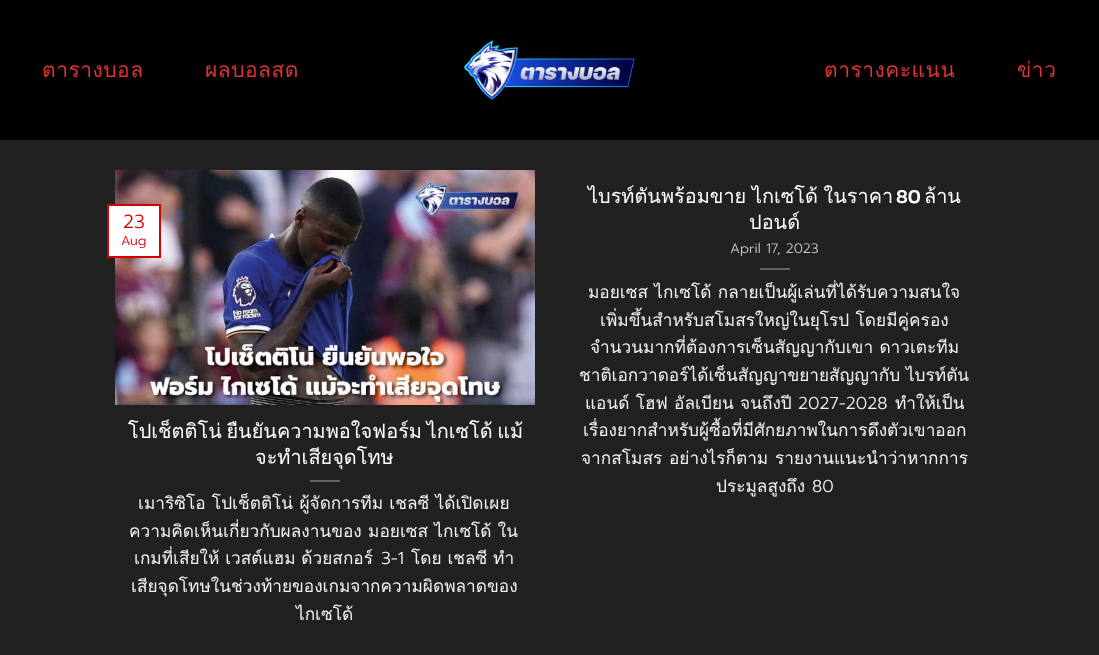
<svg xmlns="http://www.w3.org/2000/svg" width="1099" height="655">
<style>
.a{font:21px Loma;letter-spacing:0.5px;fill:#d33}
.b{font:300 19px Prompt;fill:#d30000}
.c{font:300 13px Prompt;fill:#d30000}
.d{font:19.9px Loma;fill:#fff}
.e{font:17.25px Loma;fill:#f1f1f1}
.f{font:300 17.25px Prompt;fill:#f1f1f1}
.g{font:500 19.9px Kanit;fill:#fff}
.h{font:300 13.75px Prompt;fill:#c7c7c7}
</style>
<rect width="100%" height="100%" fill="#212121"/>
<path fill="#000" d="M0 0h1099v140H0z"/>
<image href="1.png" x="464" y="40" width="171" height="60"/>
<image href="2.png" x="115" y="170" width="420" height="235"/>
<path fill="#fff" stroke="#d30000" stroke-width="2" d="M108 205h52v52H108z"/>
<path fill="#646464" d="M310 480h30v2H310z"/>
<path fill="#646464" d="M760 268h30v2H760z"/>
<text class="a" x="42" y="77">ตารางบอล</text>
<text class="a" x="205" y="77">ผลบอลสด</text>
<text class="a" x="824" y="77">ตารางคะแนน</text>
<text class="a" x="1017" y="77">ข่าว</text>
<text class="b" x="123" y="228">23</text>
<text class="c" x="121" y="245">Aug</text>
<text class="d" x="128" y="438" word-spacing="-2">โปเช็ตติโน่ ยืนยันความพอใจฟอร์ม ไกเซโด้ แม้</text>
<text class="d" x="255" y="464">จะทำเสียจุดโทษ</text>
<text class="e" x="138" y="509" word-spacing="0.5">เมาริซิโอ โปเช็ตติโน่ ผู้จัดการทีม เชลซี ได้เปิดเผย</text>
<text class="e" x="129" y="537" word-spacing="0.5">ความคิดเห็นเกี่ยวกับผลงานของ มอยเซส ไกเซโด้ ใน</text>
<text class="e" x="134" y="564">เกมที่เสียให้ เวสต์แฮม ด้วยสกอร์</text>
<text class="f" x="381" y="564">3-1</text>
<text class="e" x="411" y="564">โดย เชลซี ทำ</text>
<text class="e" x="131" y="592">เสียจุดโทษในช่วงท้ายของเกมจากความผิดพลาดของ</text>
<text class="e" x="296" y="620">ไกเซโด้</text>
<text class="d" x="588" y="203" word-spacing="-1">ไบรท์ตันพร้อมขาย ไกเซโด้ ในราคา</text>
<text class="g" x="896" y="203">80</text>
<text class="d" x="924" y="203">ล้าน</text>
<text class="d" x="749" y="229">ปอนด์</text>
<text class="h" x="730" y="253">April 17, 2023</text>
<text class="e" x="588" y="298" word-spacing="0.5">มอยเซส ไกเซโด้ กลายเป็นผู้เล่นที่ได้รับความสนใจ</text>
<text class="e" x="600" y="326" word-spacing="0.5">เพิ่มขึ้นสำหรับสโมสรใหญ่ในยุโรป โดยมีคู่ครอง</text>
<text class="e" x="590" y="353" word-spacing="0.5">จำนวนมากที่ต้องการเซ็นสัญญากับเขา ดาวเตะทีม</text>
<text class="e" x="579" y="381">ชาติเอกวาดอร์ได้เซ็นสัญญาขยายสัญญากับ ไบรท์ตัน</text>
<text class="e" x="585" y="409" word-spacing="0.5">แอนด์ โฮฟ อัลเบียน จนถึงปี</text>
<text class="f" x="798" y="409">2027-2028</text>
<text class="e" x="895" y="409">ทำให้เป็น</text>
<text class="e" x="583" y="436">เรื่องยากสำหรับผู้ซื้อที่มีศักยภาพในการดึงตัวเขาออก</text>
<text class="e" x="581" y="464" word-spacing="1">จากสโมสร อย่างไรก็ตาม รายงานแนะนำว่าหากการ</text>
<text class="e" x="716" y="492">ประมูลสูงถึง</text>
<text class="f" x="812" y="492">80</text>
</svg>
